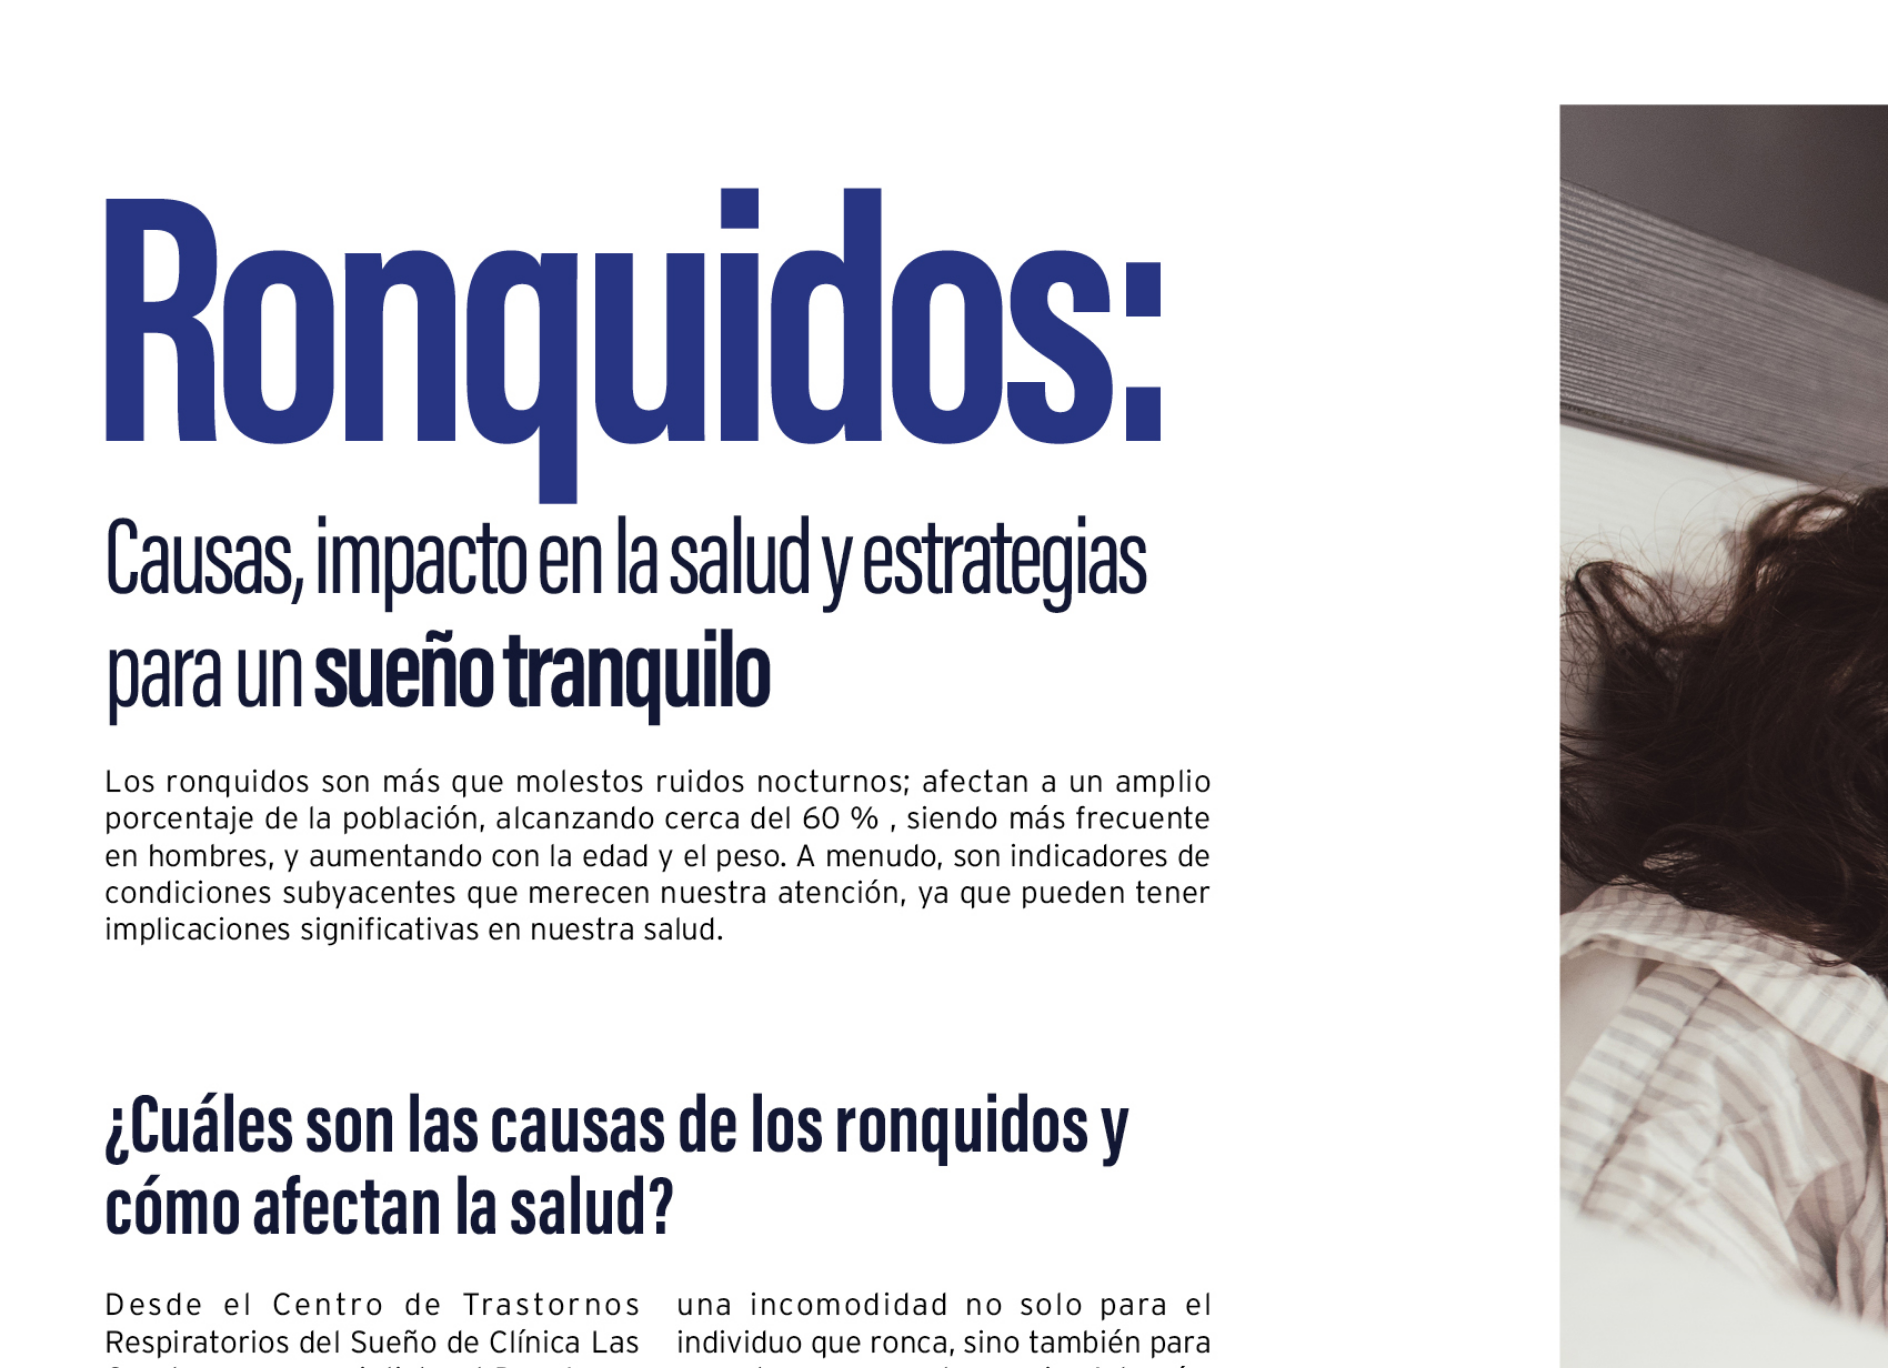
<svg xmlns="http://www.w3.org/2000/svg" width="1888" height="1368">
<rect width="100%" height="100%" fill="#fff"/>
<image href="1.png" x="99" y="104" width="1789" height="1264"/>
</svg>
